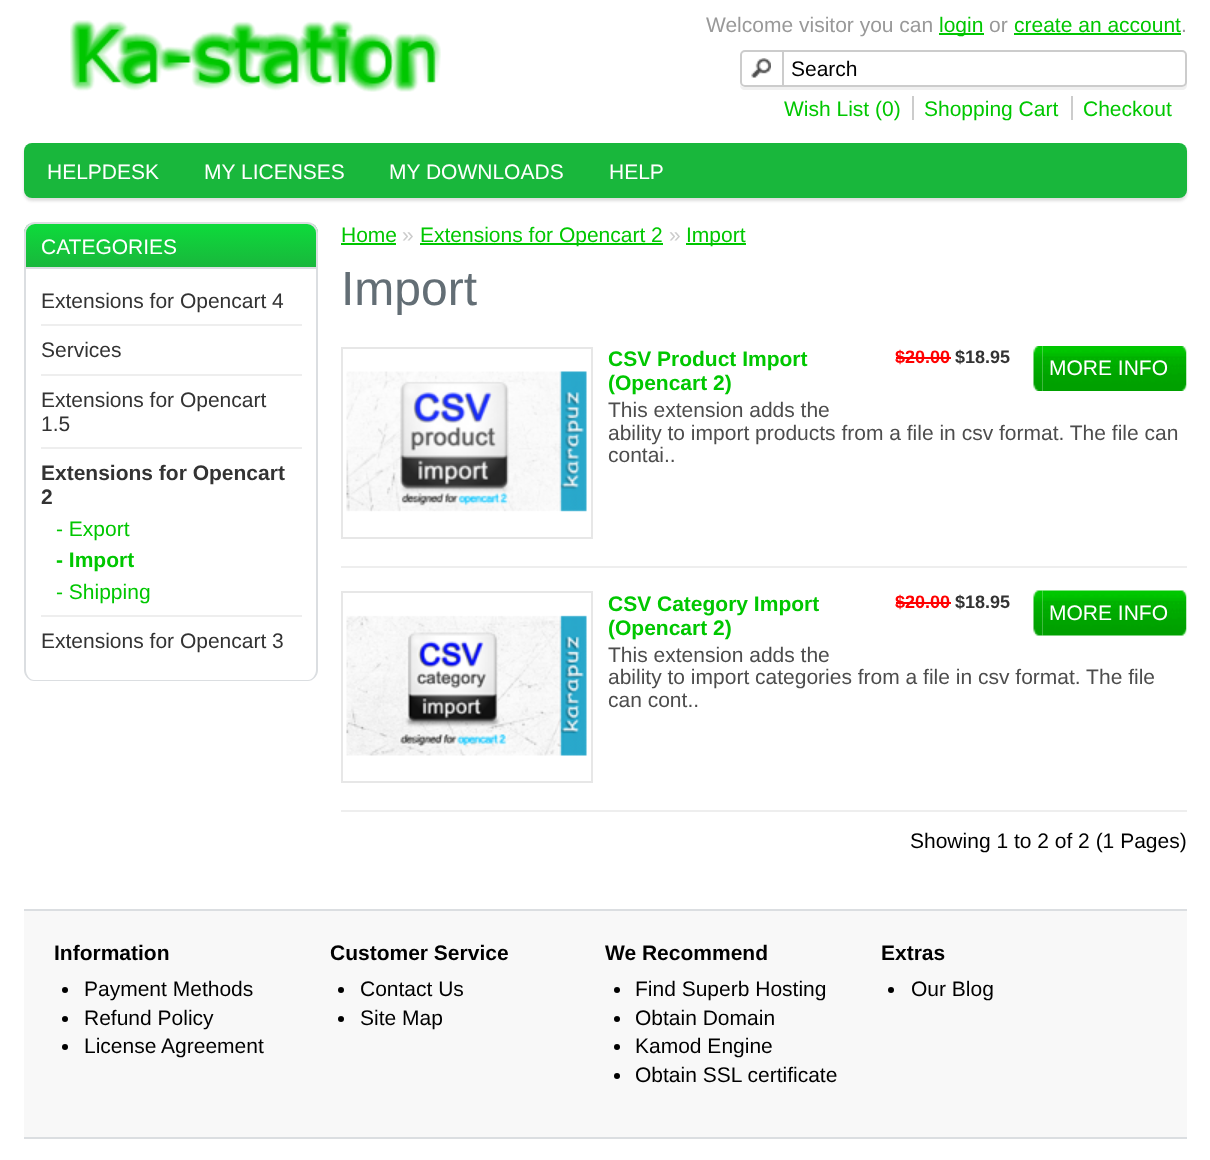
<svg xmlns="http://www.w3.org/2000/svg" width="1210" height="1160">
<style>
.a{font:21px Liberation Sans;fill:#999}
.b{font:21px Liberation Sans;fill:#00c700}
.c{font:21px Liberation Sans;fill:#000}
.d{font:21px Liberation Sans;fill:#fff}
.e{font:21px Liberation Sans;fill:#333}
.f{font:bold 21px Liberation Sans;fill:#333}
.g{font:bold 21px Liberation Sans;fill:#00c700}
.h{font:21px Liberation Sans;fill:#ccc}
.i{font:48px Liberation Sans;fill:#636e75}
.j{font:bold 18px Liberation Sans;fill:#f00}
.k{font:bold 18px Liberation Sans;fill:#333}
.l{font:21px Liberation Sans;fill:#4d4d4d}
.m{font:bold 21px Liberation Sans;fill:#000}
</style>
<defs>
<clipPath id="clip1"><path d="M35 222h272c6 0 11 5 11 11v36h-294v-36c0-6 5-11 11-11z"/></clipPath>
<linearGradient id="g1" gradientUnits="userSpaceOnUse" x1="171" y1="224" x2="171" y2="267"><stop offset="0" stop-color="#0ddb3b"/><stop offset="1" stop-color="#19b73c"/></linearGradient>
</defs>
<rect width="100%" height="100%" fill="#fff"/>
<image href="1.png" x="70" y="20" width="371" height="72"/>
<path fill="#00c700" d="M939 33h45v2H939z"/>
<path fill="#00c700" d="M1014 33h167v2H1014z"/>
<path fill="#f0f0f0" d="M740 85c0 3 2 5 5 5h437c3 0 5-2 5-5v-27l-1-2v26c0 3-2 5-4 5h-438c-2 0-3-1-4-2z"/>
<rect fill="#fff" stroke="#ccc" stroke-width="2" x="741" y="51" width="445" height="35" rx="4"/>
<image href="2.png" x="751" y="58" width="20" height="20"/>
<path fill="#ccc" d="M782 50h2v36H782z"/>
<path fill="#ccc" d="M912 96h2v24H912z"/>
<path fill="#ccc" d="M1071 96h2v24H1071z"/>
<rect fill="#ddd" filter="blur(1.5px)" x="24" y="146" width="1163" height="55" rx="8"/>
<rect fill="#19b73c" x="24" y="143" width="1163" height="55" rx="8"/>
<g clip-path="url(#clip1)">
<path fill="url(#g1)" d="M24 224h294v43H24z"/>
</g>
<path fill="none" stroke="#dbdee1" stroke-width="2" d="M35 223h272c5.5 0 10 4.5 10 10v35h-292v-35c0-5.5 4.5-10 10-10z"/>
<path fill="#dbdee1" fill-rule="evenodd" d="M24 268h294v402c0 6-5 11-10 11h-274c-5 0-10-5-10-11zm2 0h290v402c0 5-4 10-8 10h-274c-4 0-8-5-8-10z"/>
<path fill="#eee" d="M41 324h261v2H41z"/>
<path fill="#eee" d="M41 374h261v2H41z"/>
<path fill="#eee" d="M41 447h261v2H41z"/>
<path fill="#eee" d="M41 615h261v2H41z"/>
<path fill="#00c700" d="M341 243h55v2H341z"/>
<path fill="#00c700" d="M420 243h243v2H420z"/>
<path fill="#00c700" d="M686 243h60v2H686z"/>
<path fill="none" stroke="#e7e7e7" stroke-width="2" d="M342 348h250v190H342z"/>
<image href="3.png" x="346" y="371" width="241" height="141"/>
<path fill="#f00" d="M896 357h55v2H896z"/>
<image href="4.png" x="1033" y="346" width="10" height="45"/>
<image href="5.png" x="1042" y="346" width="145" height="45"/>
<path fill="#eee" d="M341 566h846v2H341z"/>
<path fill="none" stroke="#e7e7e7" stroke-width="2" d="M342 592h250v190H342z"/>
<image href="6.png" x="346" y="615" width="241" height="141"/>
<path fill="#f00" d="M896 602h55v2H896z"/>
<image href="7.png" x="1033" y="590" width="10" height="46"/>
<image href="8.png" x="1042" y="590" width="145" height="46"/>
<path fill="#eee" d="M341 810h846v2H341z"/>
<path fill="#f8f8f8" d="M24 911h1163v226H24z"/>
<path fill="#dbdee1" d="M24 909h1163v2H24z"/>
<path fill="#dbdee1" d="M24 1137h1163v2H24z"/>
<circle fill="#000" cx="65" cy="990" r="3"/>
<circle fill="#000" cx="65" cy="1019" r="3"/>
<circle fill="#000" cx="65" cy="1047" r="3"/>
<circle fill="#000" cx="341" cy="990" r="3"/>
<circle fill="#000" cx="341" cy="1019" r="3"/>
<circle fill="#000" cx="617" cy="990" r="3"/>
<circle fill="#000" cx="617" cy="1019" r="3"/>
<circle fill="#000" cx="617" cy="1047" r="3"/>
<circle fill="#000" cx="617" cy="1076" r="3"/>
<circle fill="#000" cx="891" cy="990" r="3"/>
<text class="a" x="706" y="32">Welcome visitor you can</text>
<text class="b" x="939" y="32">login</text>
<text class="a" x="989" y="32">or</text>
<text class="b" x="1014" y="32">create an account</text>
<text class="a" x="1181" y="32">.</text>
<text class="c" x="791" y="76">Search</text>
<text class="b" x="784" y="116">Wish List (0)</text>
<text class="b" x="924" y="116">Shopping Cart</text>
<text class="b" x="1083" y="116">Checkout</text>
<text class="d" x="47" y="179">HELPDESK</text>
<text class="d" x="204" y="179">MY LICENSES</text>
<text class="d" x="389" y="179">MY DOWNLOADS</text>
<text class="d" x="609" y="179">HELP</text>
<text class="d" x="41" y="254">CATEGORIES</text>
<text class="e" x="41" y="308">Extensions for Opencart 4</text>
<text class="e" x="41" y="357">Services</text>
<text class="e" x="41" y="407">Extensions for Opencart</text>
<text class="e" x="41" y="431">1.5</text>
<text class="f" x="41" y="480">Extensions for Opencart</text>
<text class="f" x="41" y="504">2</text>
<text class="b" x="56" y="536">- Export</text>
<text class="g" x="56" y="567">- Import</text>
<text class="b" x="56" y="599">- Shipping</text>
<text class="e" x="41" y="648">Extensions for Opencart 3</text>
<text class="b" x="341" y="242">Home</text>
<text class="h" x="402" y="242">»</text>
<text class="b" x="420" y="242">Extensions for Opencart 2</text>
<text class="h" x="669" y="242">»</text>
<text class="b" x="686" y="242">Import</text>
<text class="i" x="341" y="305">Import</text>
<text class="g" x="608" y="366">CSV Product Import</text>
<text class="g" x="608" y="390">(Opencart 2)</text>
<text class="j" x="895" y="363">$20.00</text>
<text class="k" x="955" y="363">$18.95</text>
<text class="l" x="608" y="417">This extension adds the</text>
<text class="l" x="608" y="440">ability to import products from a file in csv format. The file can</text>
<text class="l" x="608" y="462">contai..</text>
<text class="d" x="1049" y="375">MORE INFO</text>
<text class="g" x="608" y="611">CSV Category Import</text>
<text class="g" x="608" y="635">(Opencart 2)</text>
<text class="j" x="895" y="608">$20.00</text>
<text class="k" x="955" y="608">$18.95</text>
<text class="l" x="608" y="662">This extension adds the</text>
<text class="l" x="608" y="684">ability to import categories from a file in csv format. The file</text>
<text class="l" x="608" y="707">can cont..</text>
<text class="d" x="1049" y="620">MORE INFO</text>
<text class="c" x="910" y="848">Showing 1 to 2 of 2 (1 Pages)</text>
<text class="m" x="54" y="960">Information</text>
<text class="c" x="84" y="996">Payment Methods</text>
<text class="c" x="84" y="1025">Refund Policy</text>
<text class="c" x="84" y="1053">License Agreement</text>
<text class="m" x="330" y="960">Customer Service</text>
<text class="c" x="360" y="996">Contact Us</text>
<text class="c" x="360" y="1025">Site Map</text>
<text class="m" x="605" y="960">We Recommend</text>
<text class="c" x="635" y="996">Find Superb Hosting</text>
<text class="c" x="635" y="1025">Obtain Domain</text>
<text class="c" x="635" y="1053">Kamod Engine</text>
<text class="c" x="635" y="1082">Obtain SSL certificate</text>
<text class="m" x="881" y="960">Extras</text>
<text class="c" x="911" y="996">Our Blog</text>
</svg>
